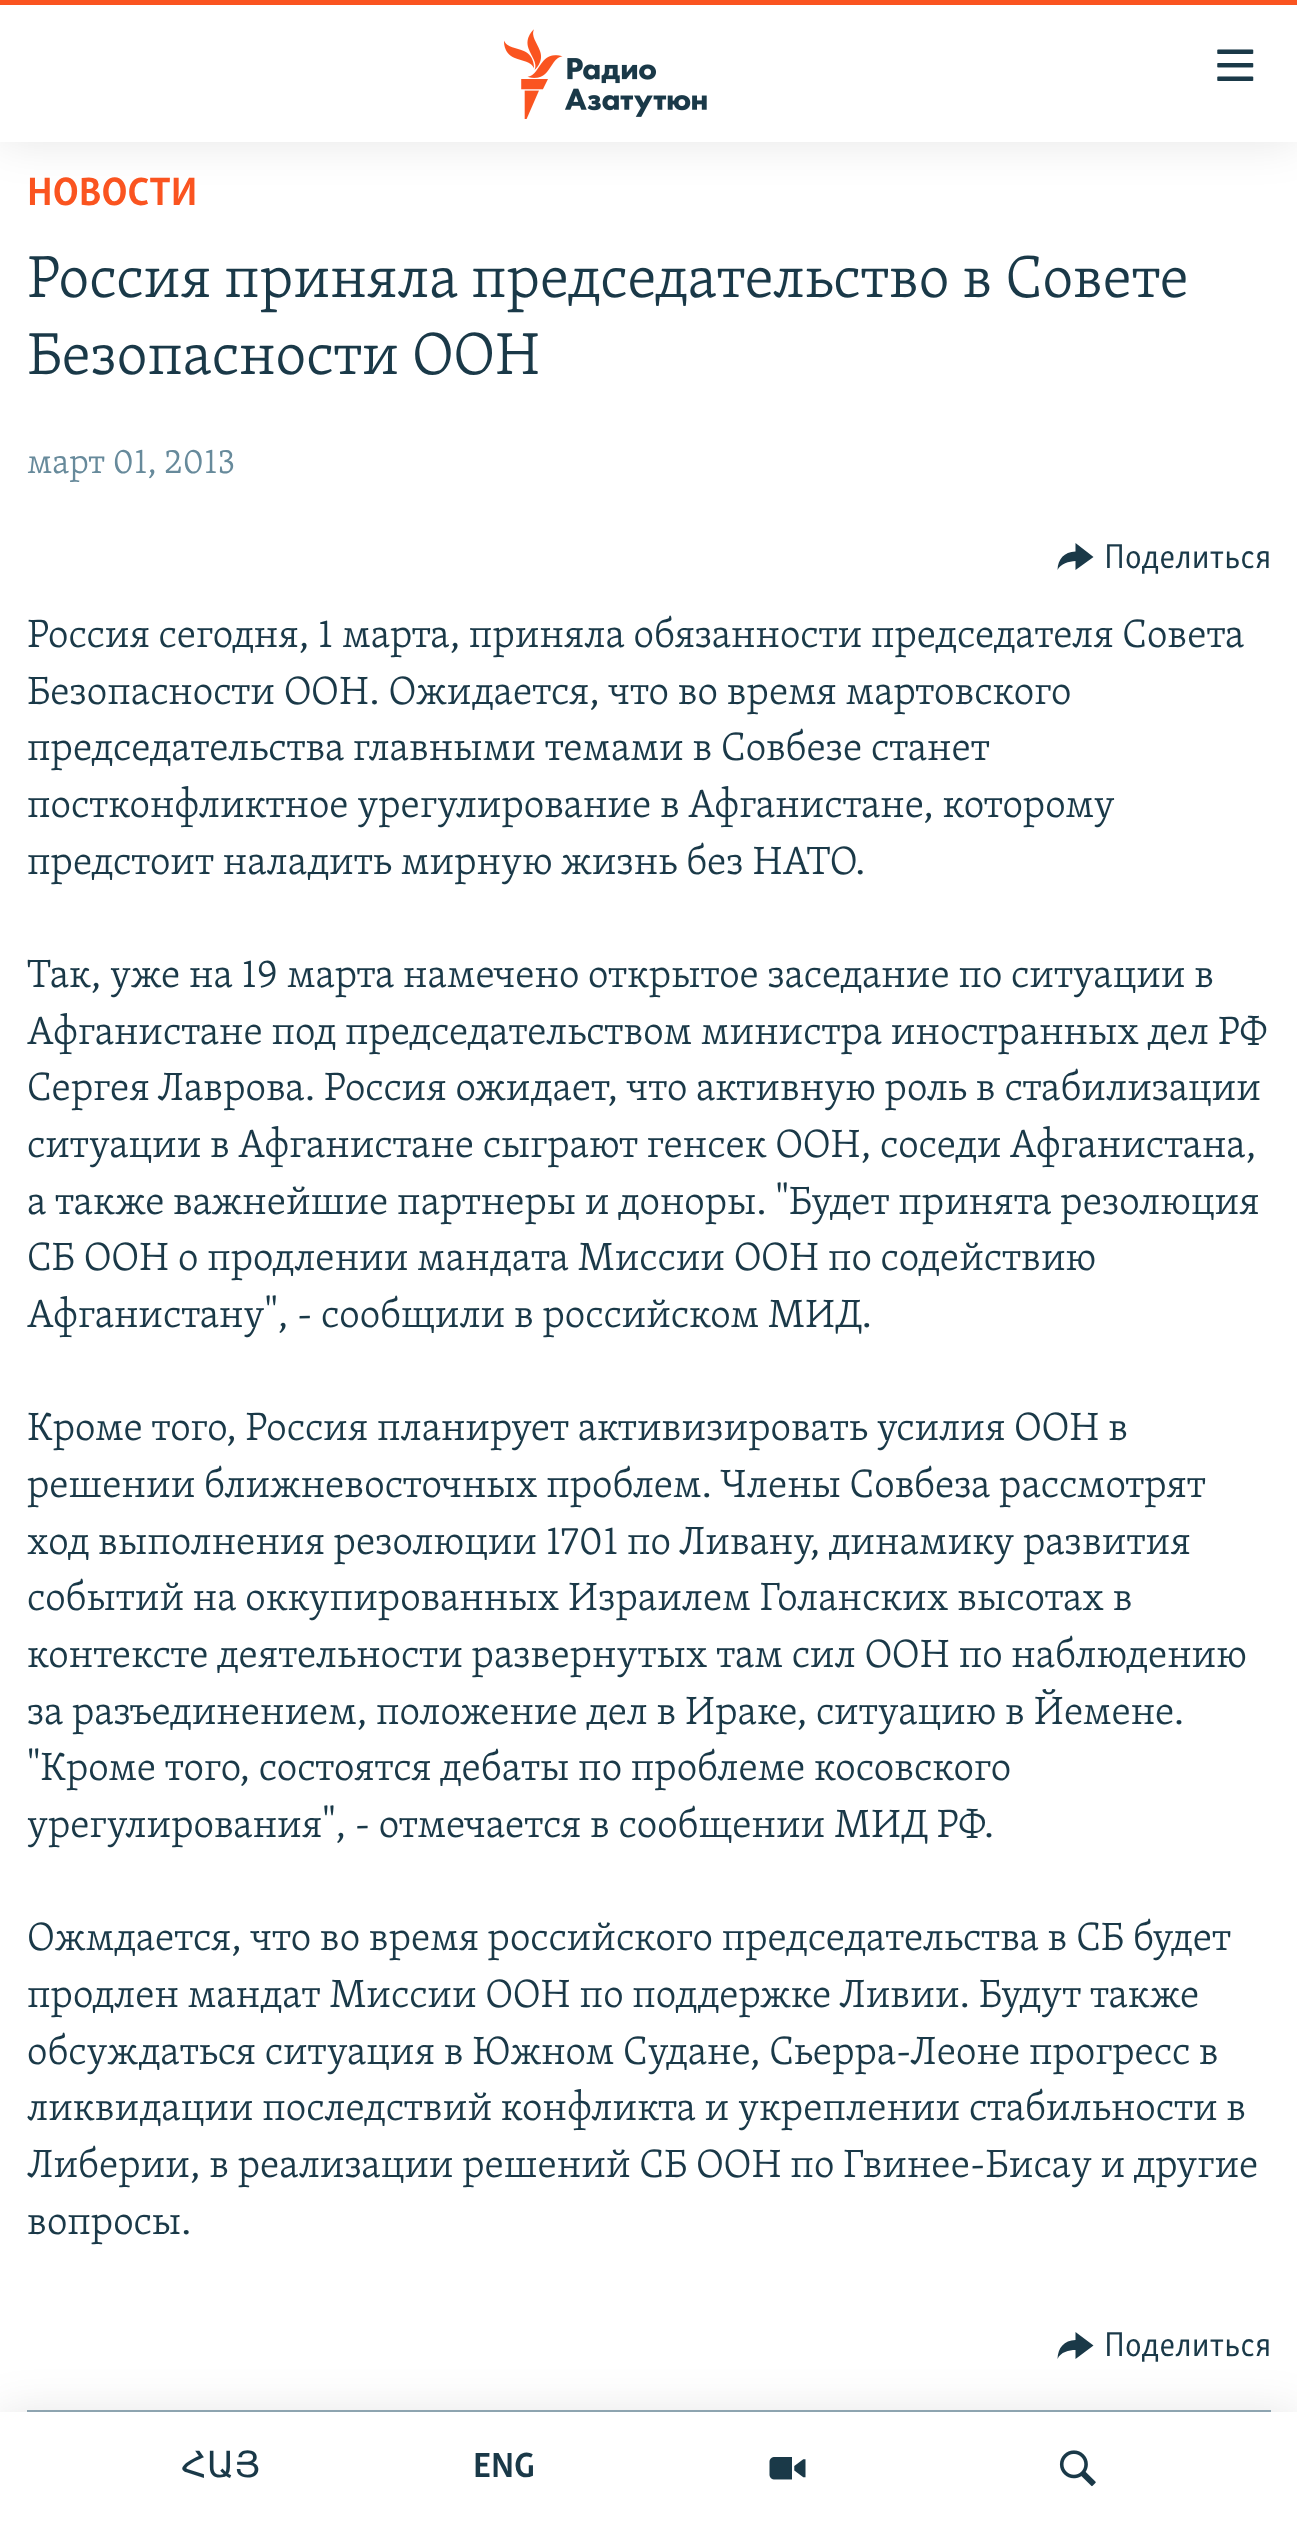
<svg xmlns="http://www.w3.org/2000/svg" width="1297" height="2524">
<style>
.a{font:bold 40.5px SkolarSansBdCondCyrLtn;fill:#fa5420}
.b{font:300 60.75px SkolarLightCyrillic;fill:#1a3948}
.c{font:300 35.5px SkolarLightCyrillic;fill:#678a9b}
.d{font:35.5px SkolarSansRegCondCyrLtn;fill:#1a3948}
.e{font:300 40.5px SkolarLightCyrillic;fill:#1a3948}
.f{font:36px DejaVu Sans;fill:#1a3948}
.g{font:bold 36px SkolarSansBdCondCyrLtn;fill:#1a3948}
</style>
<rect width="100%" height="100%" fill="#fff"/>
<path fill="#1a3948" d="M1057.5 570c.5-11 6.5-18 18-18.5v-8.5l18 14l-18 13v-9c-6.5 .5-15 2.5-18 9z"/>
<path fill="#95adb9" d="M27 2410h1244v2H27z"/>
<path fill="#1a3948" d="M1057.5 2359c.5-11.5 6.5-18.5 18-19v-8l18 13.5l-18 13.5v-9c-6.5 0-15 2-18 9z"/>
<path fill="#0000001a" filter="blur(22.5px)" d="M0 0h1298v142H0z"/>
<path fill="#fff" d="M0 5h1297v137H0z"/>
<path fill="#fa5420" d="M0 0h1297v5H0z"/>
<image href="1.png" x="504" y="29" width="203" height="90"/>
<image href="2.png" x="1217" y="49" width="37" height="32"/>
<path fill="#0000001a" filter="blur(22.5px)" d="M0 2412h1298v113H0z"/>
<path fill="#fff" d="M0 2412h1297v112H0z"/>
<image href="3.png" x="769" y="2457" width="37" height="23"/>
<image href="4.png" x="1059" y="2450" width="37" height="37"/>
<text class="a" x="27" y="205">НОВОСТИ</text>
<text class="b" x="27" y="297">Россия приняла председательство в Совете</text>
<text class="b" x="27" y="374">Безопасности ООН</text>
<text class="c" x="27" y="473">март 01, 2013</text>
<text class="d" x="1104" y="568">Поделиться</text>
<text class="e" x="27" y="647">Россия сегодня, 1 марта, приняла обязанности председателя Совета</text>
<text class="e" x="27" y="704">Безопасности ООН. Ожидается, что во время мартовского</text>
<text class="e" x="27" y="760">председательства главными темами в Совбезе станет</text>
<text class="e" x="27" y="817">постконфликтное урегулирование в Афганистане, которому</text>
<text class="e" x="27" y="874">предстоит наладить мирную жизнь без НАТО.</text>
<text class="e" x="27" y="987">Так, уже на 19 марта намечено открытое заседание по ситуации в</text>
<text class="e" x="27" y="1044">Афганистане под председательством министра иностранных дел РФ</text>
<text class="e" x="27" y="1100">Сергея Лаврова. Россия ожидает, что активную роль в стабилизации</text>
<text class="e" x="27" y="1157">ситуации в Афганистане сыграют генсек ООН, соседи Афганистана,</text>
<text class="e" x="27" y="1214">а также важнейшие партнеры и доноры. "Будет принята резолюция</text>
<text class="e" x="27" y="1270">СБ ООН о продлении мандата Миссии ООН по содействию</text>
<text class="e" x="27" y="1327">Афганистану", - сообщили в российском МИД.</text>
<text class="e" x="27" y="1440">Кроме того, Россия планирует активизировать усилия ООН в</text>
<text class="e" x="27" y="1497">решении ближневосточных проблем. Члены Совбеза рассмотрят</text>
<text class="e" x="27" y="1554">ход выполнения резолюции 1701 по Ливану, динамику развития</text>
<text class="e" x="27" y="1610">событий на оккупированных Израилем Голанских высотах в</text>
<text class="e" x="27" y="1667">контексте деятельности развернутых там сил ООН по наблюдению</text>
<text class="e" x="27" y="1724">за разъединением, положение дел в Ираке, ситуацию в Йемене.</text>
<text class="e" x="27" y="1780">"Кроме того, состоятся дебаты по проблеме косовского</text>
<text class="e" x="27" y="1837">урегулирования", - отмечается в сообщении МИД РФ.</text>
<text class="e" x="27" y="1950">Ожмдается, что во время российского председательства в СБ будет</text>
<text class="e" x="27" y="2007">продлен мандат Миссии ООН по поддержке Ливии. Будут также</text>
<text class="e" x="27" y="2064">обсуждаться ситуация в Южном Судане, Сьерра-Леоне прогресс в</text>
<text class="e" x="27" y="2120">ликвидации последствий конфликта и укреплении стабильности в</text>
<text class="e" x="27" y="2177">Либерии, в реализации решений СБ ООН по Гвинее-Бисау и другие</text>
<text class="e" x="27" y="2234">вопросы.</text>
<text class="d" x="1104" y="2356">Поделиться</text>
<text class="f" x="181" y="2477">ՀԱՅ</text>
<text class="g" x="473" y="2477">ENG</text>
</svg>
